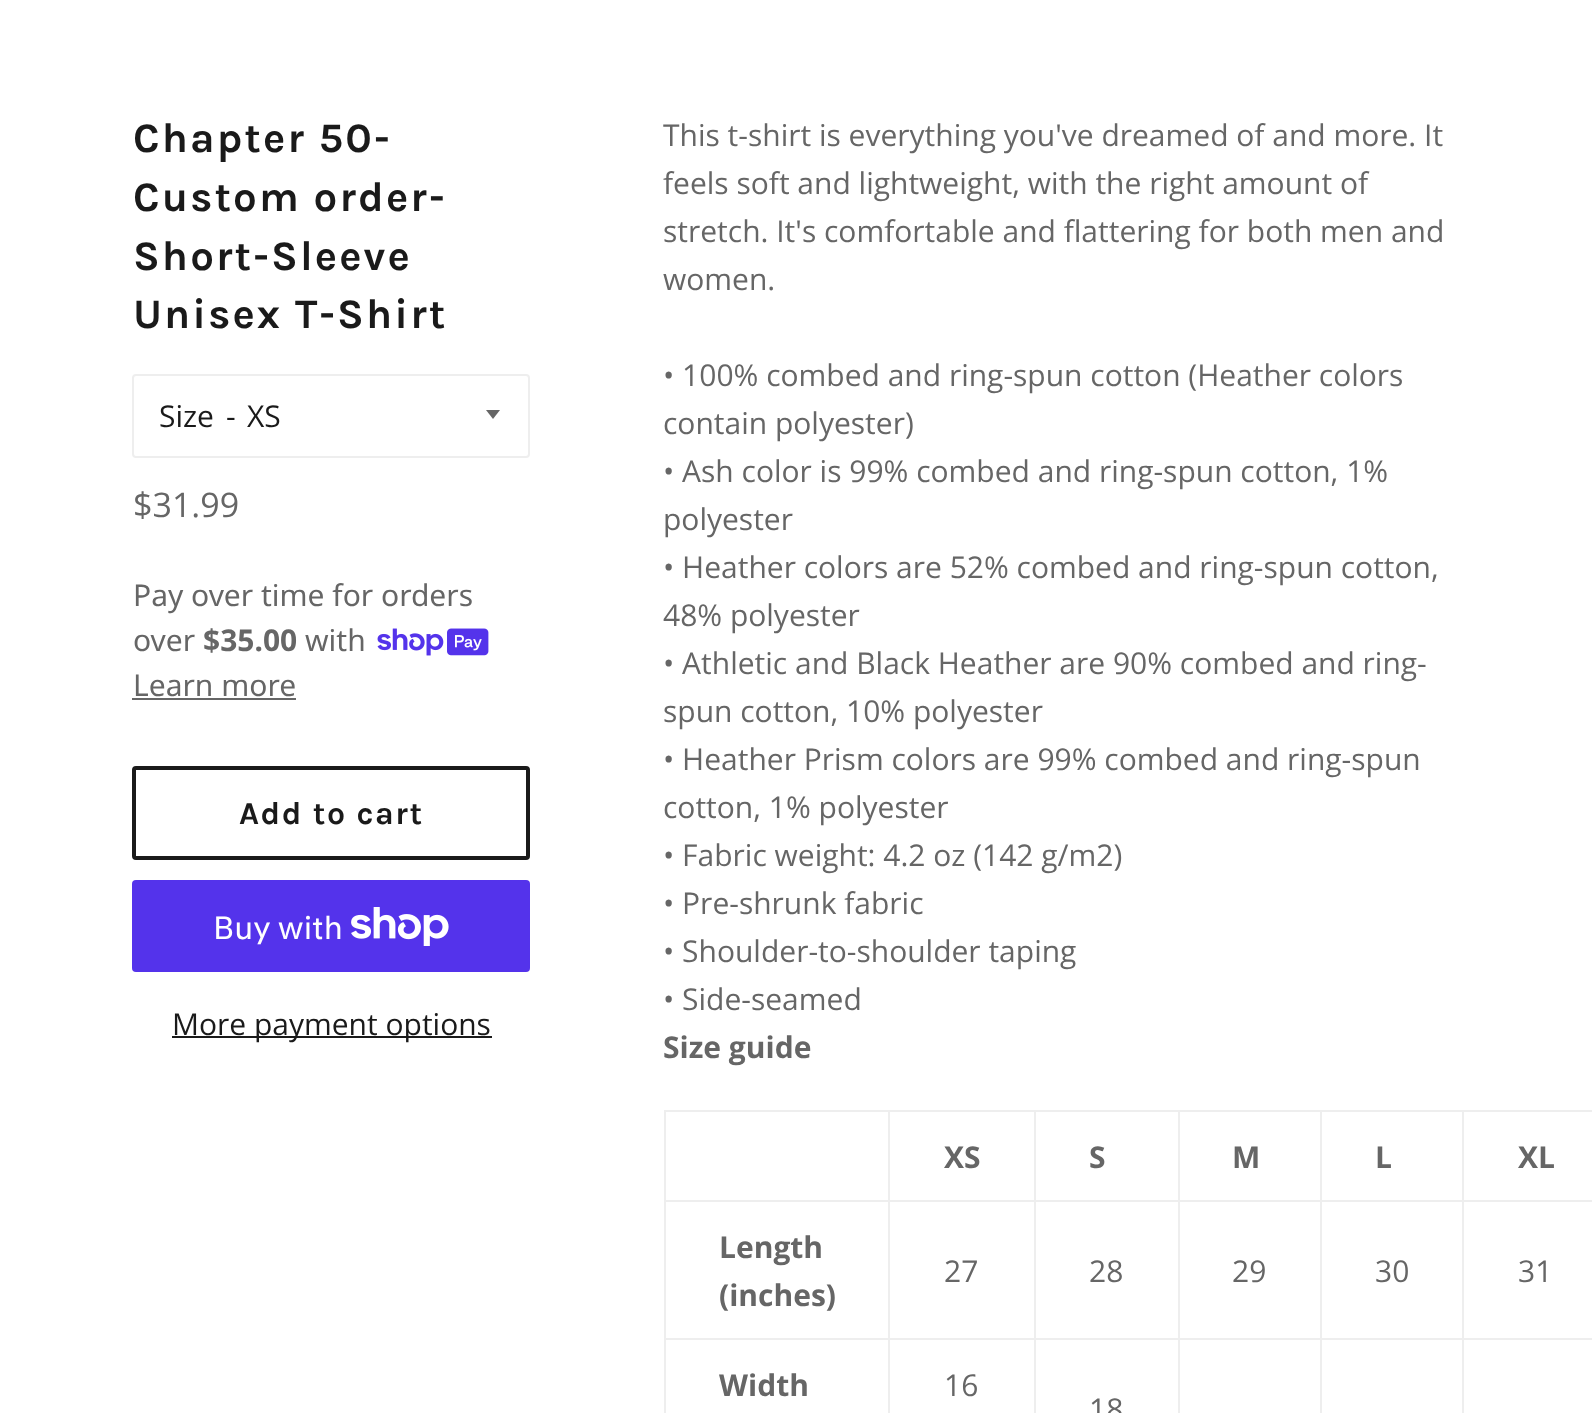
<svg xmlns="http://www.w3.org/2000/svg" width="1592" height="1413">
<style>
.a{font:bold 42px Karla;letter-spacing:2.1px;fill:#1a1a1a}
.b{font:30px Open Sans;fill:#1a1a1a}
.c{font:34px Open Sans;fill:#666}
.d{font:30px Noto Sans;fill:#666}
.e{font:bold 30px Noto Sans;fill:#666}
.f{font:bold 32px Karla;letter-spacing:1.6px;fill:#1a1a1a}
.g{font:32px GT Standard;fill:#fff}
.h{font:30px Open Sans;fill:#666}
.i{font:bold 30px Open Sans;fill:#666}
</style>
<rect width="100%" height="100%" fill="#fff"/>
<rect fill="none" stroke="#eee" stroke-width="2" x="133" y="375" width="396" height="82" rx="3"/>
<path fill="#666" d="M486 410l7 9l7-9z"/>
<image href="1.png" x="377" y="628" width="112" height="28"/>
<path fill="#666" d="M132 698h164v2H132z"/>
<rect fill="none" stroke="#1a1a1a" stroke-width="4" x="134" y="768" width="394" height="90" rx="2"/>
<rect fill="#5433eb" x="132" y="880" width="398" height="92" rx="4"/>
<image href="2.png" x="351" y="907" width="98" height="39"/>
<path fill="#1a1a1a" d="M172 1036h320v2H172z"/>
<path fill="#eee" d="M1462 1110h130v2H1462z"/>
<path fill="#eee" d="M1462 1200h130v2H1462z"/>
<path fill="#eee" d="M1462 1338h130v2H1462z"/>
<path fill="#eee" d="M1462 1338h2v75H1462z"/>
<path fill="#eee" d="M1320 1338h144v2H1320z"/>
<path fill="#eee" d="M1462 1200h2v140H1462z"/>
<path fill="#eee" d="M1320 1200h144v2H1320z"/>
<path fill="#eee" d="M1462 1110h2v92H1462z"/>
<path fill="#eee" d="M1320 1110h144v2H1320z"/>
<path fill="#eee" d="M1320 1338h2v75H1320z"/>
<path fill="#eee" d="M1178 1338h144v2H1178z"/>
<path fill="#eee" d="M1320 1200h2v140H1320z"/>
<path fill="#eee" d="M1178 1200h144v2H1178z"/>
<path fill="#eee" d="M1320 1110h2v92H1320z"/>
<path fill="#eee" d="M1178 1110h144v2H1178z"/>
<path fill="#eee" d="M1178 1338h2v75H1178z"/>
<path fill="#eee" d="M1034 1338h146v2H1034z"/>
<path fill="#eee" d="M1178 1200h2v140H1178z"/>
<path fill="#eee" d="M1034 1200h146v2H1034z"/>
<path fill="#eee" d="M1178 1110h2v92H1178z"/>
<path fill="#eee" d="M1034 1110h146v2H1034z"/>
<path fill="#eee" d="M1034 1338h2v75H1034z"/>
<path fill="#eee" d="M888 1338h148v2H888z"/>
<path fill="#eee" d="M1034 1200h2v140H1034z"/>
<path fill="#eee" d="M888 1200h148v2H888z"/>
<path fill="#eee" d="M1034 1110h2v92H1034z"/>
<path fill="#eee" d="M888 1110h148v2H888z"/>
<path fill="#eee" d="M888 1338h2v75H888z"/>
<path fill="#eee" d="M664 1338h226v2H664z"/>
<path fill="#eee" d="M888 1200h2v140H888z"/>
<path fill="#eee" d="M664 1200h226v2H664z"/>
<path fill="#eee" d="M888 1110h2v92H888z"/>
<path fill="#eee" d="M664 1110h226v2H664z"/>
<path fill="#eee" d="M664 1338h2v75H664z"/>
<path fill="#eee" d="M664 1200h2v140H664z"/>
<path fill="#eee" d="M664 1110h2v92H664z"/>
<text class="a" x="133" y="152">Chapter 50-</text>
<text class="a" x="133" y="211">Custom order-</text>
<text class="a" x="133" y="270">Short-Sleeve</text>
<text class="a" x="133" y="328">Unisex T-Shirt</text>
<text class="b" x="159" y="427">Size</text>
<text class="b" x="226" y="427">-</text>
<text class="b" x="247" y="427">XS</text>
<text class="c" x="133" y="517">$31.99</text>
<text class="d" x="133" y="606">Pay over time for orders</text>
<text class="d" x="133" y="651">over</text>
<text class="e" x="203" y="651">$35.00</text>
<text class="d" x="305" y="651">with</text>
<text class="d" x="133" y="696">Learn more</text>
<text class="f" x="239" y="824">Add to cart</text>
<text class="g" x="213" y="939">Buy with</text>
<text class="b" x="172" y="1035">More payment options</text>
<text class="h" x="663" y="146">This t-shirt is everything you've dreamed of and more. It</text>
<text class="h" x="663" y="194">feels soft and lightweight, with the right amount of</text>
<text class="h" x="663" y="242">stretch. It's comfortable and flattering for both men and</text>
<text class="h" x="663" y="290">women.</text>
<text class="h" x="663" y="386">• 100% combed and ring-spun cotton (Heather colors</text>
<text class="h" x="663" y="434">contain polyester)</text>
<text class="h" x="663" y="482">• Ash color is 99% combed and ring-spun cotton, 1%</text>
<text class="h" x="663" y="530">polyester</text>
<text class="h" x="663" y="578">• Heather colors are 52% combed and ring-spun cotton,</text>
<text class="h" x="663" y="626">48% polyester</text>
<text class="h" x="663" y="674">• Athletic and Black Heather are 90% combed and ring-</text>
<text class="h" x="663" y="722">spun cotton, 10% polyester</text>
<text class="h" x="663" y="770">• Heather Prism colors are 99% combed and ring-spun</text>
<text class="h" x="663" y="818">cotton, 1% polyester</text>
<text class="h" x="663" y="866">• Fabric weight: 4.2 oz (142 g/m2)</text>
<text class="h" x="663" y="914">• Pre-shrunk fabric</text>
<text class="h" x="663" y="962">• Shoulder-to-shoulder taping</text>
<text class="h" x="663" y="1010">• Side-seamed</text>
<text class="i" x="663" y="1058">Size guide</text>
<text class="i" x="944" y="1168">XS</text>
<text class="i" x="1089" y="1168">S</text>
<text class="i" x="1232" y="1168">M</text>
<text class="i" x="1375" y="1168">L</text>
<text class="i" x="1518" y="1168">XL</text>
<text class="i" x="719" y="1258">Length</text>
<text class="i" x="719" y="1306">(inches)</text>
<text class="h" x="944" y="1282">27</text>
<text class="h" x="1089" y="1282">28</text>
<text class="h" x="1232" y="1282">29</text>
<text class="h" x="1375" y="1282">30</text>
<text class="h" x="1518" y="1282">31</text>
<text class="i" x="719" y="1396">Width</text>
<text class="h" x="944" y="1396">16</text>
<text class="h" x="1089" y="1420">18</text>
</svg>
